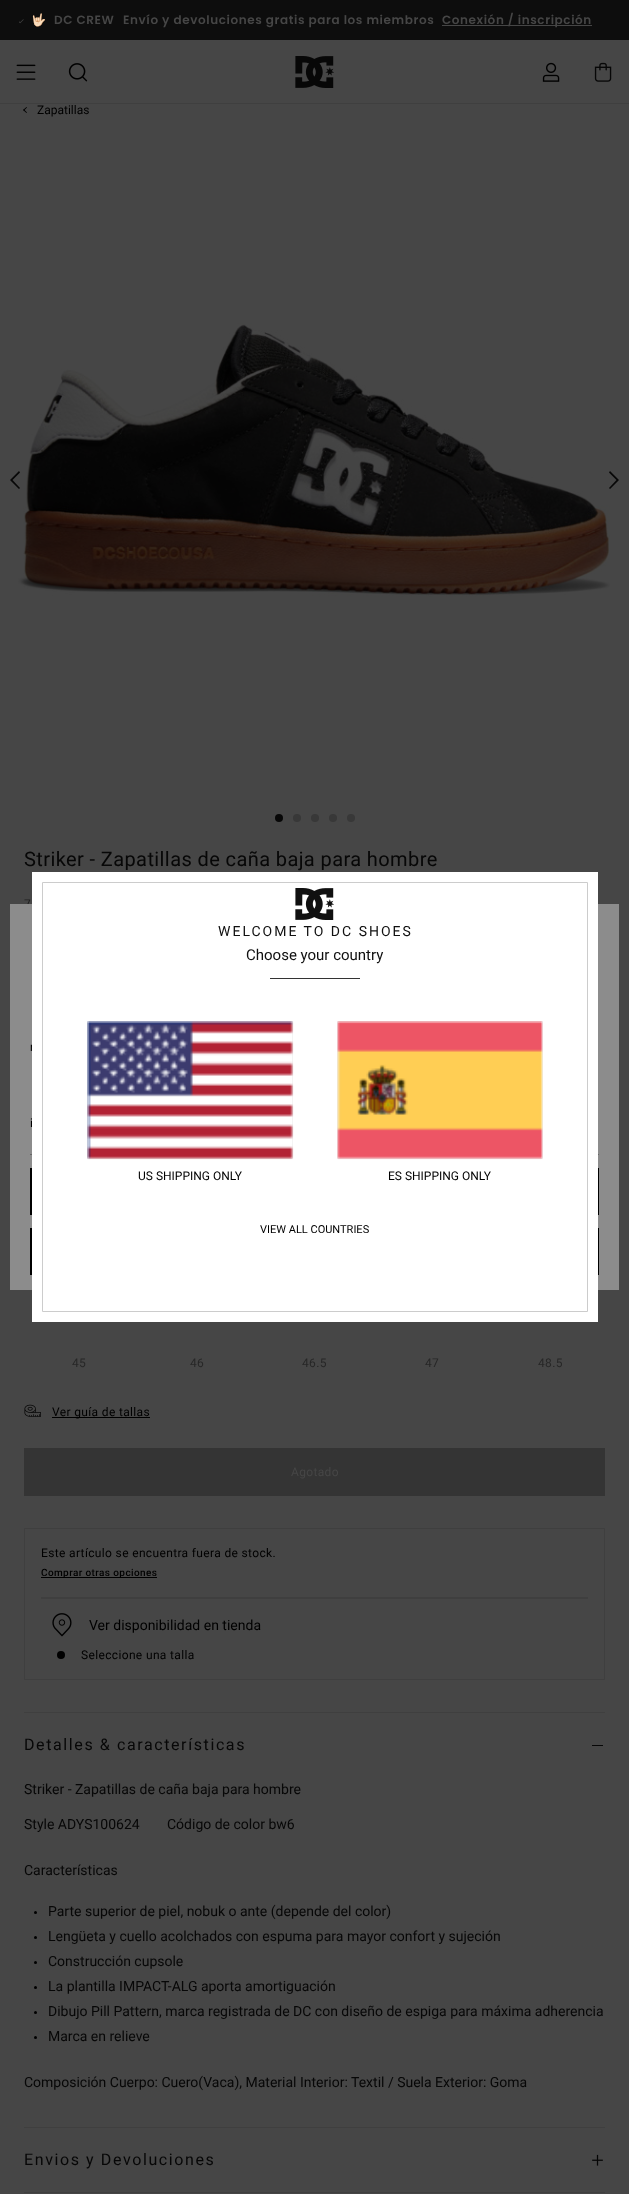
<svg xmlns="http://www.w3.org/2000/svg" width="629" height="2194">
<style>
.a{font:12px Noto Color Emoji;fill:#464646}
.b{font:600 12px Poppins;letter-spacing:0.6px;fill:#464646}
.c{font:12px Roboto;fill:#000}
.d{font:20px Roboto;letter-spacing:0.4px;fill:#070707}
.e{font:12px Roboto;fill:#202020}
.f{font:12px Roboto;letter-spacing:0.35px;fill:#272727}
.g{font:12px Roboto;letter-spacing:0.35px;fill:#000}
.h{font:12px Roboto;letter-spacing:0.35px;fill:#464646}
.i{font:500 10px Roboto;letter-spacing:0.4px;fill:#000}
.j{font:14px Roboto;fill:#000}
.k{font:16px Roboto;letter-spacing:1.6px;fill:#070707}
.l{font:14px Roboto;fill:#070707}
.m{font:14px Roboto;letter-spacing:2px;fill:#101010}
.n{font:15px Roboto;fill:#101010}
.o{font:11px Roboto;fill:#000}
</style>
<rect width="100%" height="100%" fill="#464646"/>
<path fill="#0d0d0d" d="M0 0h629v40H0z"/>
<image href="1.png" x="19" y="19" width="5" height="5"/>
<path fill="#464646" d="M442 25h150v1H442z"/>
<path fill="#3f3f3f" d="M0 103h629v1H0z"/>
<image href="2.png" x="295" y="56" width="39" height="32"/>
<image href="3.png" x="16" y="64" width="20" height="16"/>
<image href="4.png" x="68" y="63" width="20" height="19"/>
<image href="5.png" x="542" y="62" width="18" height="20"/>
<image href="6.png" x="594" y="62" width="18" height="20"/>
<path fill="#000" d="M27 112.5l-.5 .5l-3.5-3l1-.5z"/>
<path fill="#000" d="M27 107.5l-3 3l-1-.5l3.5-3z"/>
<image href="7.png" x="18" y="323" width="592" height="274"/>
<path fill="#070707" d="M20 472.5l-1-1.5l-9 9l9 9l1-1l-7.5-8z"/>
<path fill="#070707" d="M609 488l1 1l9-9l-9-9l-1 1.5l7.5 7.5z"/>
<circle fill="#070707" cx="279" cy="818" r="4"/>
<circle fill="#383838" cx="297" cy="818" r="4"/>
<circle fill="#383838" cx="315" cy="818" r="4"/>
<circle fill="#383838" cx="333" cy="818" r="4"/>
<circle fill="#383838" cx="351" cy="818" r="4"/>
<image href="8.png" x="24" y="1404" width="17" height="13"/>
<path fill="#000" d="M52 1417h98v1H52z"/>
<path fill="#343434" d="M24 1448h581v48H24z"/>
<path fill="none" stroke="#3f3f3f" d="M24.5 1528.5h580v151H24.5z"/>
<path fill="#3f3f3f" d="M41 1597h547v2H41z"/>
<path fill="#000" d="M41 1577h116v1H41z"/>
<image href="9.png" x="52" y="1613" width="20" height="24"/>
<circle fill="#000" cx="61" cy="1655" r="4"/>
<path fill="#3f3f3f" d="M24 2192h581v1H24z"/>
<path fill="#3f3f3f" d="M24 1712h581v1H24z"/>
<path fill="#070707" d="M592 1745h11v1H592z"/>
<circle fill="#000" cx="35.5" cy="1912.5" r="1.5"/>
<circle fill="#000" cx="35.5" cy="1937.5" r="1.5"/>
<circle fill="#000" cx="35.5" cy="1962.5" r="1.5"/>
<circle fill="#000" cx="35.5" cy="1987.5" r="1.5"/>
<circle fill="#000" cx="35.5" cy="2012.5" r="1.5"/>
<circle fill="#000" cx="35.5" cy="2037.5" r="1.5"/>
<path fill="#3f3f3f" d="M24 2127h581v1H24z"/>
<image href="10.png" x="592" y="2154" width="11" height="12"/>
<text class="a" x="31" y="24">🤟🏻</text>
<text class="b" x="54" y="24">DC CREW</text>
<text class="b" x="123" y="24">Envío y devoluciones gratis para los miembros</text>
<text class="b" x="442" y="24">Conexión / inscripción</text>
<text class="c" x="37" y="114">Zapatillas</text>
<text class="d" x="24" y="866">Striker - Zapatillas de caña baja para hombre</text>
<text class="e" x="24" y="908">7</text>
<text class="f" x="72" y="1367">45</text>
<text class="f" x="190" y="1367">46</text>
<text class="f" x="302" y="1367">46.5</text>
<text class="f" x="425" y="1367">47</text>
<text class="f" x="538" y="1367">48.5</text>
<text class="g" x="52" y="1416">Ver guía de tallas</text>
<text class="h" x="291" y="1476">Agotado</text>
<text class="g" x="41" y="1557">Este artículo se encuentra fuera de stock.</text>
<text class="i" x="41" y="1576">Comprar otras opciones</text>
<text class="j" x="89" y="1630">Ver disponibilidad en tienda</text>
<text class="g" x="81" y="1659">Seleccione una talla</text>
<text class="k" x="24" y="1750">Detalles &amp; características</text>
<text class="l" x="24" y="1794">Striker - Zapatillas de caña baja para hombre</text>
<text class="l" x="24" y="1829">Style ADYS100624</text>
<text class="l" x="167" y="1829">Código de color bw6</text>
<text class="l" x="24" y="1875">Características</text>
<text class="l" x="48" y="1916">Parte superior de piel, nobuk o ante (depende del color)</text>
<text class="l" x="48" y="1941">Lengüeta y cuello acolchados con espuma para mayor confort y sujeción</text>
<text class="l" x="48" y="1966">Construcción cupsole</text>
<text class="l" x="48" y="1991">La plantilla IMPACT-ALG aporta amortiguación</text>
<text class="l" x="48" y="2016">Dibujo Pill Pattern, marca registrada de DC con diseño de espiga para máxima adherencia</text>
<text class="l" x="48" y="2041">Marca en relieve</text>
<text class="l" x="24" y="2087">Composición Cuerpo: Cuero(Vaca), Material Interior: Textil / Suela Exterior: Goma</text>
<text class="k" x="24" y="2165">Envios y Devoluciones</text>
<path fill="#8c8c8c" d="M10 904h609v386H10z"/>
<text class="c" x="30" y="1051">r</text>
<text class="c" x="30" y="1127">i</text>
<path fill="#676767" d="M30 1154h569v1H30z"/>
<path fill="#000" d="M30 1168h569v47H30z"/>
<path fill="#000" d="M30 1228h569v47H30z"/>
<path fill="#fff" d="M32 872h566v450H32z"/>
<path fill="none" stroke="#ccc" d="M42.5 882.5h545v429H42.5z"/>
<image href="11.png" x="295" y="888" width="39" height="32"/>
<text class="m" x="218" y="936">WELCOME TO DC SHOES</text>
<text class="n" x="246" y="960">Choose your country</text>
<path fill="#333" d="M270 978h90v1H270z"/>
<path fill="none" stroke="#eee" d="M87.5 1021.5h205v137H87.5z"/>
<image href="12.png" x="87" y="1021" width="207" height="139"/>
<text class="c" x="138" y="1180">US SHIPPING ONLY</text>
<path fill="none" stroke="#eee" d="M337.5 1021.5h205v137H337.5z"/>
<image href="13.png" x="337" y="1021" width="206" height="139"/>
<text class="c" x="388" y="1180">ES SHIPPING ONLY</text>
<text class="o" x="260" y="1233">VIEW ALL COUNTRIES</text>
</svg>
